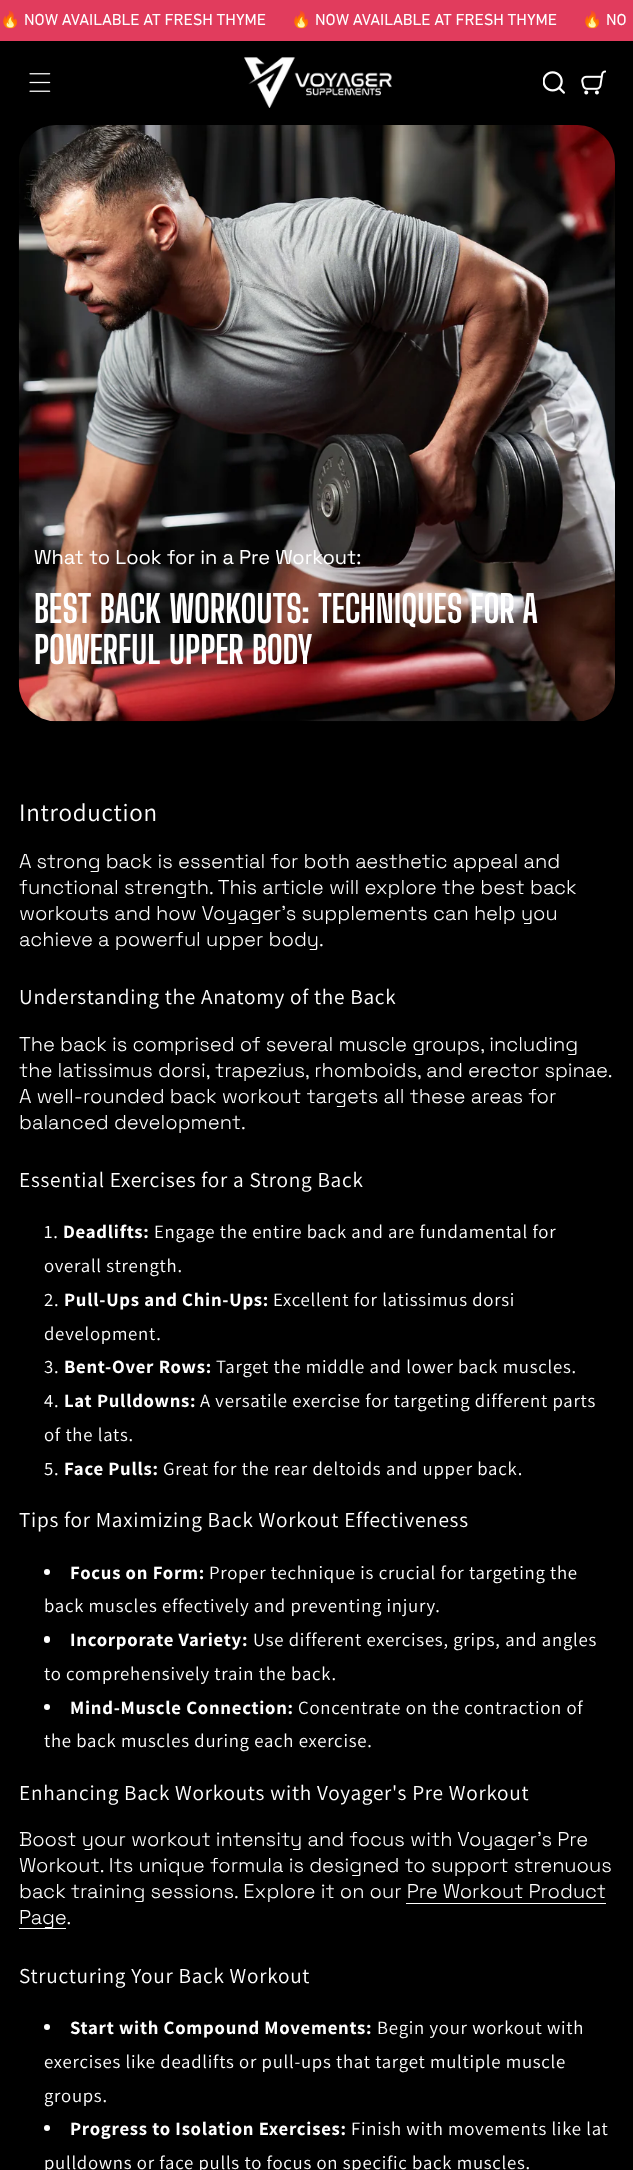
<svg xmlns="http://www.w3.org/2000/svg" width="633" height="2170">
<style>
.a{font:16.25px Noto Color Emoji;fill:#fff}
.b{font:16.25px 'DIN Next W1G';fill:#fff}
.c{font:20px Space Grotesk;fill:#fff}
.d{font:bold 37.5px Big Shoulders Display;fill:#fff}
.e{font:25px Assistant;letter-spacing:0.75px;fill:#fff}
.f{font:300 20px Space Grotesk;fill:#fff}
.g{font:21.25px Assistant;letter-spacing:0.75px;fill:#fff}
.h{font:18.75px Assistant;letter-spacing:0.75px;fill:#fff}
.i{font:bold 18.75px Assistant;letter-spacing:0.75px;fill:#fff}
</style>
<rect width="100%" height="100%" fill="#000"/>
<path fill="#e13c5d" d="M0 0h633v41H0z"/>
<image href="1.png" x="29" y="73" width="22" height="19"/>
<image href="2.png" x="244" y="57" width="148" height="51"/>
<image href="3.png" x="543" y="71" width="22" height="23"/>
<image href="4.png" x="581" y="70" width="25" height="25"/>
<image href="5.png" x="18" y="125" width="597" height="597"/>
<circle fill="#fff" cx="47" cy="1572" r="3"/>
<rect fill="#fff" x="44" y="1636" width="6" height="7" rx="3"/>
<circle fill="#fff" cx="47" cy="1707" r="3"/>
<path fill="#fff" d="M406 1903h200v1H406z"/>
<path fill="#fff" d="M19 1928h47v1H19z"/>
<circle fill="#fff" cx="47" cy="2027" r="3"/>
<circle fill="#fff" cx="47" cy="2128" r="3"/>
<text class="a" x="0" y="25">🔥</text>
<text class="b" x="24" y="25">NOW AVAILABLE AT FRESH THYME</text>
<text class="a" x="291" y="25">🔥</text>
<text class="b" x="315" y="25">NOW AVAILABLE AT FRESH THYME</text>
<text class="a" x="582" y="25">🔥</text>
<text class="b" x="606" y="25">NO</text>
<text class="c" x="34" y="564">What to Look for in a Pre Workout:</text>
<text class="d" x="34" y="623">BEST BACK WORKOUTS: TECHNIQUES FOR A</text>
<text class="d" x="34" y="664">POWERFUL UPPER BODY</text>
<text class="e" x="19" y="821">Introduction</text>
<text class="f" x="19" y="868">A strong back is essential for both aesthetic appeal and</text>
<text class="f" x="19" y="894">functional strength. This article will explore the best back</text>
<text class="f" x="19" y="920">workouts and how Voyager's supplements can help you</text>
<text class="f" x="19" y="946">achieve a powerful upper body.</text>
<text class="g" x="19" y="1004">Understanding the Anatomy of the Back</text>
<text class="f" x="19" y="1051">The back is comprised of several muscle groups, including</text>
<text class="f" x="19" y="1077">the latissimus dorsi, trapezius, rhomboids, and erector spinae.</text>
<text class="f" x="19" y="1103">A well-rounded back workout targets all these areas for</text>
<text class="f" x="19" y="1129">balanced development.</text>
<text class="g" x="19" y="1187">Essential Exercises for a Strong Back</text>
<text class="h" x="44" y="1238">1.</text>
<text class="i" x="63" y="1238">Deadlifts:</text>
<text class="h" x="154" y="1238">Engage the entire back and are fundamental for</text>
<text class="h" x="44" y="1272">overall strength.</text>
<text class="h" x="44" y="1306">2.</text>
<text class="i" x="64" y="1306">Pull-Ups and Chin-Ups:</text>
<text class="h" x="273" y="1306">Excellent for latissimus dorsi</text>
<text class="h" x="44" y="1340">development.</text>
<text class="h" x="44" y="1373">3.</text>
<text class="i" x="64" y="1373">Bent-Over Rows:</text>
<text class="h" x="216" y="1373">Target the middle and lower back muscles.</text>
<text class="h" x="44" y="1407">4.</text>
<text class="i" x="64" y="1407">Lat Pulldowns:</text>
<text class="h" x="200" y="1407">A versatile exercise for targeting different parts</text>
<text class="h" x="44" y="1441">of the lats.</text>
<text class="h" x="44" y="1475">5.</text>
<text class="i" x="64" y="1475">Face Pulls:</text>
<text class="h" x="163" y="1475">Great for the rear deltoids and upper back.</text>
<text class="g" x="19" y="1527">Tips for Maximizing Back Workout Effectiveness</text>
<text class="i" x="70" y="1579">Focus on Form:</text>
<text class="h" x="209" y="1579">Proper technique is crucial for targeting the</text>
<text class="h" x="44" y="1612">back muscles effectively and preventing injury.</text>
<text class="i" x="70" y="1646">Incorporate Variety:</text>
<text class="h" x="253" y="1646">Use different exercises, grips, and angles</text>
<text class="h" x="44" y="1680">to comprehensively train the back.</text>
<text class="i" x="70" y="1714">Mind-Muscle Connection:</text>
<text class="h" x="298" y="1714">Concentrate on the contraction of</text>
<text class="h" x="44" y="1747">the back muscles during each exercise.</text>
<text class="g" x="19" y="1800">Enhancing Back Workouts with Voyager's Pre Workout</text>
<text class="f" x="19" y="1846">Boost your workout intensity and focus with Voyager's Pre</text>
<text class="f" x="19" y="1872">Workout. Its unique formula is designed to support strenuous</text>
<text class="f" x="19" y="1898">back training sessions. Explore it on our Pre Workout Product</text>
<text class="f" x="19" y="1924">Page.</text>
<text class="g" x="19" y="1983">Structuring Your Back Workout</text>
<text class="i" x="70" y="2034">Start with Compound Movements:</text>
<text class="h" x="377" y="2034">Begin your workout with</text>
<text class="h" x="44" y="2068">exercises like deadlifts or pull-ups that target multiple muscle</text>
<text class="h" x="44" y="2102">groups.</text>
<text class="i" x="70" y="2135">Progress to Isolation Exercises:</text>
<text class="h" x="351" y="2135">Finish with movements like lat</text>
<text class="h" x="44" y="2169">pulldowns or face pulls to focus on specific back muscles.</text>
</svg>
